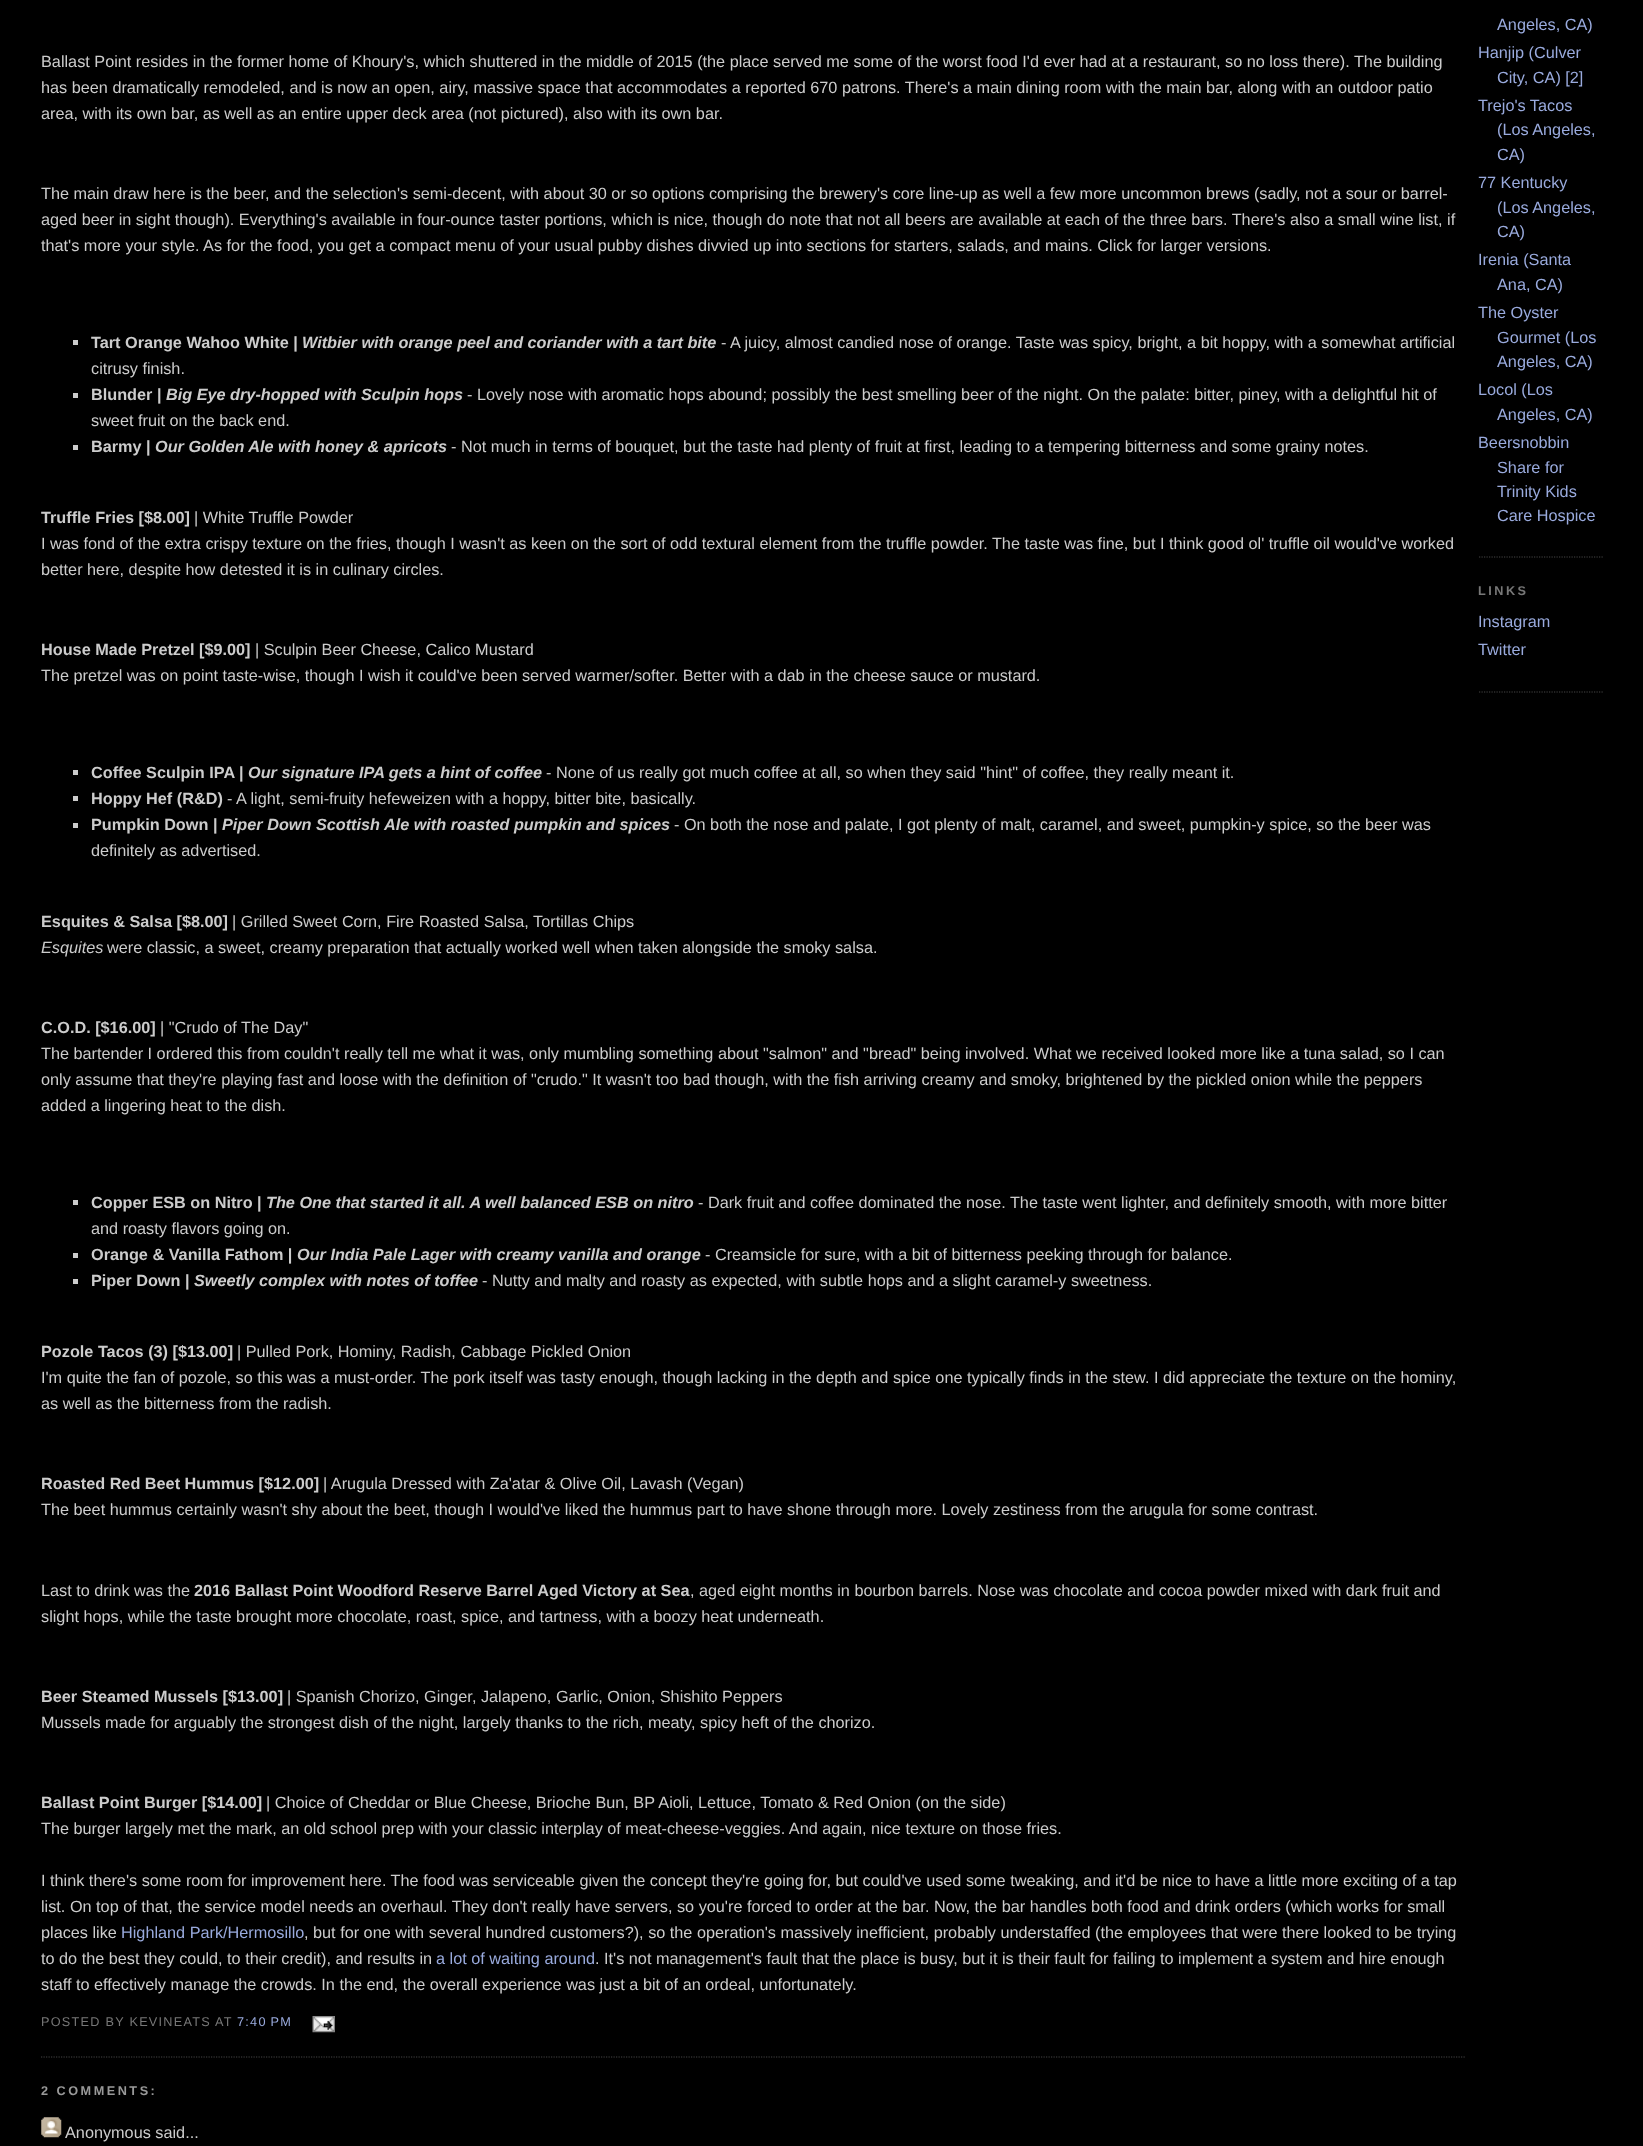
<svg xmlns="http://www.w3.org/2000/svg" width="1643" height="2146">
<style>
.a{font:16.25px Liberation Sans;fill:#ccc}
.b{font:bold 16.25px Liberation Sans;fill:#ccc}
.c{font:italic bold 16.25px Liberation Sans;fill:#ccc}
.d{font:italic 16.25px Liberation Sans;fill:#ccc}
.e{font:16.25px Liberation Sans;fill:#9ad}
.f{font:12.7px Liberation Sans;letter-spacing:1.25px;fill:#777}
.g{font:12.7px Liberation Sans;letter-spacing:1.25px;fill:#9ad}
.h{font:bold 12.7px Liberation Sans;letter-spacing:2.5px;fill:#999}
.i{font:bold 12.7px Liberation Sans;letter-spacing:2.5px;fill:#777}
</style>
<rect width="100%" height="100%" fill="#000"/>
<path fill="none" stroke="#444" stroke-width="1.2" stroke-dasharray="1.25 1.25" d="M41 2057h1425"/>
<path fill="#ccc" d="M73 340h5v5H73z"/>
<path fill="#ccc" d="M73 393h5v5H73z"/>
<path fill="#ccc" d="M73 445h5v5H73z"/>
<path fill="#ccc" d="M73 770h5v5H73z"/>
<path fill="#ccc" d="M73 796h5v5H73z"/>
<path fill="#ccc" d="M73 823h5v5H73z"/>
<path fill="#ccc" d="M73 1200h5v5H73z"/>
<path fill="#ccc" d="M73 1253h5v5H73z"/>
<path fill="#ccc" d="M73 1279h5v5H73z"/>
<image href="1.png" x="312" y="2016" width="23" height="17"/>
<image href="2.png" x="41" y="2117" width="21" height="21"/>
<path fill="none" stroke="#444" stroke-width="1.2" stroke-dasharray="1.25 1.25" d="M1479 557h125"/>
<path fill="none" stroke="#444" stroke-width="1.2" stroke-dasharray="1.25 1.25" d="M1479 692h125"/>
<text class="a" x="41" y="67">Ballast Point resides in the former home of Khoury's, which shuttered in the middle of 2015 (the place served me some of the worst food I'd ever had at a restaurant, so no loss there). The building</text>
<text class="a" x="41" y="93">has been dramatically remodeled, and is now an open, airy, massive space that accommodates a reported 670 patrons. There's a main dining room with the main bar, along with an outdoor patio</text>
<text class="a" x="41" y="119">area, with its own bar, as well as an entire upper deck area (not pictured), also with its own bar.</text>
<text class="a" x="41" y="199">The main draw here is the beer, and the selection's semi-decent, with about 30 or so options comprising the brewery's core line-up as well a few more uncommon brews (sadly, not a sour or barrel-</text>
<text class="a" x="41" y="225">aged beer in sight though). Everything's available in four-ounce taster portions, which is nice, though do note that not all beers are available at each of the three bars. There's also a small wine list, if</text>
<text class="a" x="41" y="251">that's more your style. As for the food, you get a compact menu of your usual pubby dishes divvied up into sections for starters, salads, and mains. Click for larger versions.</text>
<text class="b" x="91" y="348">Tart Orange Wahoo White |</text>
<text class="c" x="302" y="348">Witbier with orange peel and coriander with a tart bite</text>
<text class="a" x="721" y="348">- A juicy, almost candied nose of orange. Taste was spicy, bright, a bit hoppy, with a somewhat artificial</text>
<text class="a" x="91" y="374">citrusy finish.</text>
<text class="b" x="91" y="400">Blunder |</text>
<text class="c" x="166" y="400">Big Eye dry-hopped with Sculpin hops</text>
<text class="a" x="467" y="400">- Lovely nose with aromatic hops abound; possibly the best smelling beer of the night. On the palate: bitter, piney, with a delightful hit of</text>
<text class="a" x="91" y="426">sweet fruit on the back end.</text>
<text class="b" x="91" y="452">Barmy |</text>
<text class="c" x="155" y="452">Our Golden Ale with honey &amp; apricots</text>
<text class="a" x="451" y="452">- Not much in terms of bouquet, but the taste had plenty of fruit at first, leading to a tempering bitterness and some grainy notes.</text>
<text class="b" x="41" y="523">Truffle Fries [$8.00]</text>
<text class="a" x="194" y="523">| White Truffle Powder</text>
<text class="a" x="41" y="549">I was fond of the extra crispy texture on the fries, though I wasn't as keen on the sort of odd textural element from the truffle powder. The taste was fine, but I think good ol' truffle oil would've worked</text>
<text class="a" x="41" y="575">better here, despite how detested it is in culinary circles.</text>
<text class="b" x="41" y="655">House Made Pretzel [$9.00]</text>
<text class="a" x="255" y="655">| Sculpin Beer Cheese, Calico Mustard</text>
<text class="a" x="41" y="681">The pretzel was on point taste-wise, though I wish it could've been served warmer/softer. Better with a dab in the cheese sauce or mustard.</text>
<text class="b" x="91" y="778">Coffee Sculpin IPA |</text>
<text class="c" x="248" y="778">Our signature IPA gets a hint of coffee</text>
<text class="a" x="546" y="778">- None of us really got much coffee at all, so when they said "hint" of coffee, they really meant it.</text>
<text class="b" x="91" y="804">Hoppy Hef (R&amp;D)</text>
<text class="a" x="227" y="804">- A light, semi-fruity hefeweizen with a hoppy, bitter bite, basically.</text>
<text class="b" x="91" y="830">Pumpkin Down |</text>
<text class="c" x="222" y="830">Piper Down Scottish Ale with roasted pumpkin and spices</text>
<text class="a" x="674" y="830">- On both the nose and palate, I got plenty of malt, caramel, and sweet, pumpkin-y spice, so the beer was</text>
<text class="a" x="91" y="856">definitely as advertised.</text>
<text class="b" x="41" y="927">Esquites &amp; Salsa [$8.00]</text>
<text class="a" x="232" y="927">| Grilled Sweet Corn, Fire Roasted Salsa, Tortillas Chips</text>
<text class="d" x="41" y="953">Esquites</text>
<text class="a" x="107" y="953">were classic, a sweet, creamy preparation that actually worked well when taken alongside the smoky salsa.</text>
<text class="b" x="41" y="1033">C.O.D. [$16.00]</text>
<text class="a" x="160" y="1033">| "Crudo of The Day"</text>
<text class="a" x="41" y="1059">The bartender I ordered this from couldn't really tell me what it was, only mumbling something about "salmon" and "bread" being involved. What we received looked more like a tuna salad, so I can</text>
<text class="a" x="41" y="1085">only assume that they're playing fast and loose with the definition of "crudo." It wasn't too bad though, with the fish arriving creamy and smoky, brightened by the pickled onion while the peppers</text>
<text class="a" x="41" y="1111">added a lingering heat to the dish.</text>
<text class="b" x="91" y="1208">Copper ESB on Nitro |</text>
<text class="c" x="266" y="1208">The One that started it all. A well balanced ESB on nitro</text>
<text class="a" x="698" y="1208">- Dark fruit and coffee dominated the nose. The taste went lighter, and definitely smooth, with more bitter</text>
<text class="a" x="91" y="1234">and roasty flavors going on.</text>
<text class="b" x="91" y="1260">Orange &amp; Vanilla Fathom |</text>
<text class="c" x="297" y="1260">Our India Pale Lager with creamy vanilla and orange</text>
<text class="a" x="705" y="1260">- Creamsicle for sure, with a bit of bitterness peeking through for balance.</text>
<text class="b" x="91" y="1286">Piper Down |</text>
<text class="c" x="194" y="1286">Sweetly complex with notes of toffee</text>
<text class="a" x="482" y="1286">- Nutty and malty and roasty as expected, with subtle hops and a slight caramel-y sweetness.</text>
<text class="b" x="41" y="1357">Pozole Tacos (3) [$13.00]</text>
<text class="a" x="237" y="1357">| Pulled Pork, Hominy, Radish, Cabbage Pickled Onion</text>
<text class="a" x="41" y="1383">I'm quite the fan of pozole, so this was a must-order. The pork itself was tasty enough, though lacking in the depth and spice one typically finds in the stew. I did appreciate the texture on the hominy,</text>
<text class="a" x="41" y="1409">as well as the bitterness from the radish.</text>
<text class="b" x="41" y="1489">Roasted Red Beet Hummus [$12.00]</text>
<text class="a" x="323" y="1489">| Arugula Dressed with Za'atar &amp; Olive Oil, Lavash (Vegan)</text>
<text class="a" x="41" y="1515">The beet hummus certainly wasn't shy about the beet, though I would've liked the hummus part to have shone through more. Lovely zestiness from the arugula for some contrast.</text>
<text class="a" x="41" y="1596">Last to drink was the</text>
<text class="b" x="194" y="1596">2016 Ballast Point Woodford Reserve Barrel Aged Victory at Sea</text>
<text class="a" x="690" y="1596">, aged eight months in bourbon barrels. Nose was chocolate and cocoa powder mixed with dark fruit and</text>
<text class="a" x="41" y="1622">slight hops, while the taste brought more chocolate, roast, spice, and tartness, with a boozy heat underneath.</text>
<text class="b" x="41" y="1702">Beer Steamed Mussels [$13.00]</text>
<text class="a" x="287" y="1702">| Spanish Chorizo, Ginger, Jalapeno, Garlic, Onion, Shishito Peppers</text>
<text class="a" x="41" y="1728">Mussels made for arguably the strongest dish of the night, largely thanks to the rich, meaty, spicy heft of the chorizo.</text>
<text class="b" x="41" y="1808">Ballast Point Burger [$14.00]</text>
<text class="a" x="266" y="1808">| Choice of Cheddar or Blue Cheese, Brioche Bun, BP Aioli, Lettuce, Tomato &amp; Red Onion (on the side)</text>
<text class="a" x="41" y="1834">The burger largely met the mark, an old school prep with your classic interplay of meat-cheese-veggies. And again, nice texture on those fries.</text>
<text class="a" x="41" y="1886">I think there's some room for improvement here. The food was serviceable given the concept they're going for, but could've used some tweaking, and it'd be nice to have a little more exciting of a tap</text>
<text class="a" x="41" y="1912">list. On top of that, the service model needs an overhaul. They don't really have servers, so you're forced to order at the bar. Now, the bar handles both food and drink orders (which works for small</text>
<text class="a" x="41" y="1938">places like</text>
<text class="e" x="121" y="1938">Highland Park/Hermosillo</text>
<text class="a" x="304" y="1938">, but for one with several hundred customers?), so the operation's massively inefficient, probably understaffed (the employees that were there looked to be trying</text>
<text class="a" x="41" y="1964">to do the best they could, to their credit), and results in</text>
<text class="e" x="436" y="1964">a lot of waiting around</text>
<text class="a" x="595" y="1964">. It's not management's fault that the place is busy, but it is their fault for failing to implement a system and hire enough</text>
<text class="a" x="41" y="1990">staff to effectively manage the crowds. In the end, the overall experience was just a bit of an ordeal, unfortunately.</text>
<text class="f" x="41" y="2026">POSTED BY KEVINEATS AT</text>
<text class="g" x="237" y="2026">7:40 PM</text>
<text class="h" x="41" y="2095">2 COMMENTS:</text>
<text class="a" x="65" y="2138">Anonymous said...</text>
<text class="e" x="1497" y="30">Angeles, CA)</text>
<text class="e" x="1478" y="58">Hanjip (Culver</text>
<text class="e" x="1497" y="83">City, CA) [2]</text>
<text class="e" x="1478" y="111">Trejo's Tacos</text>
<text class="e" x="1497" y="135">(Los Angeles,</text>
<text class="e" x="1497" y="160">CA)</text>
<text class="e" x="1478" y="188">77 Kentucky</text>
<text class="e" x="1497" y="213">(Los Angeles,</text>
<text class="e" x="1497" y="237">CA)</text>
<text class="e" x="1478" y="265">Irenia (Santa</text>
<text class="e" x="1497" y="290">Ana, CA)</text>
<text class="e" x="1478" y="318">The Oyster</text>
<text class="e" x="1497" y="343">Gourmet (Los</text>
<text class="e" x="1497" y="367">Angeles, CA)</text>
<text class="e" x="1478" y="395">Locol (Los</text>
<text class="e" x="1497" y="420">Angeles, CA)</text>
<text class="e" x="1478" y="448">Beersnobbin</text>
<text class="e" x="1497" y="473">Share for</text>
<text class="e" x="1497" y="497">Trinity Kids</text>
<text class="e" x="1497" y="521">Care Hospice</text>
<text class="i" x="1478" y="595">LINKS</text>
<text class="e" x="1478" y="627">Instagram</text>
<text class="e" x="1478" y="655">Twitter</text>
</svg>
